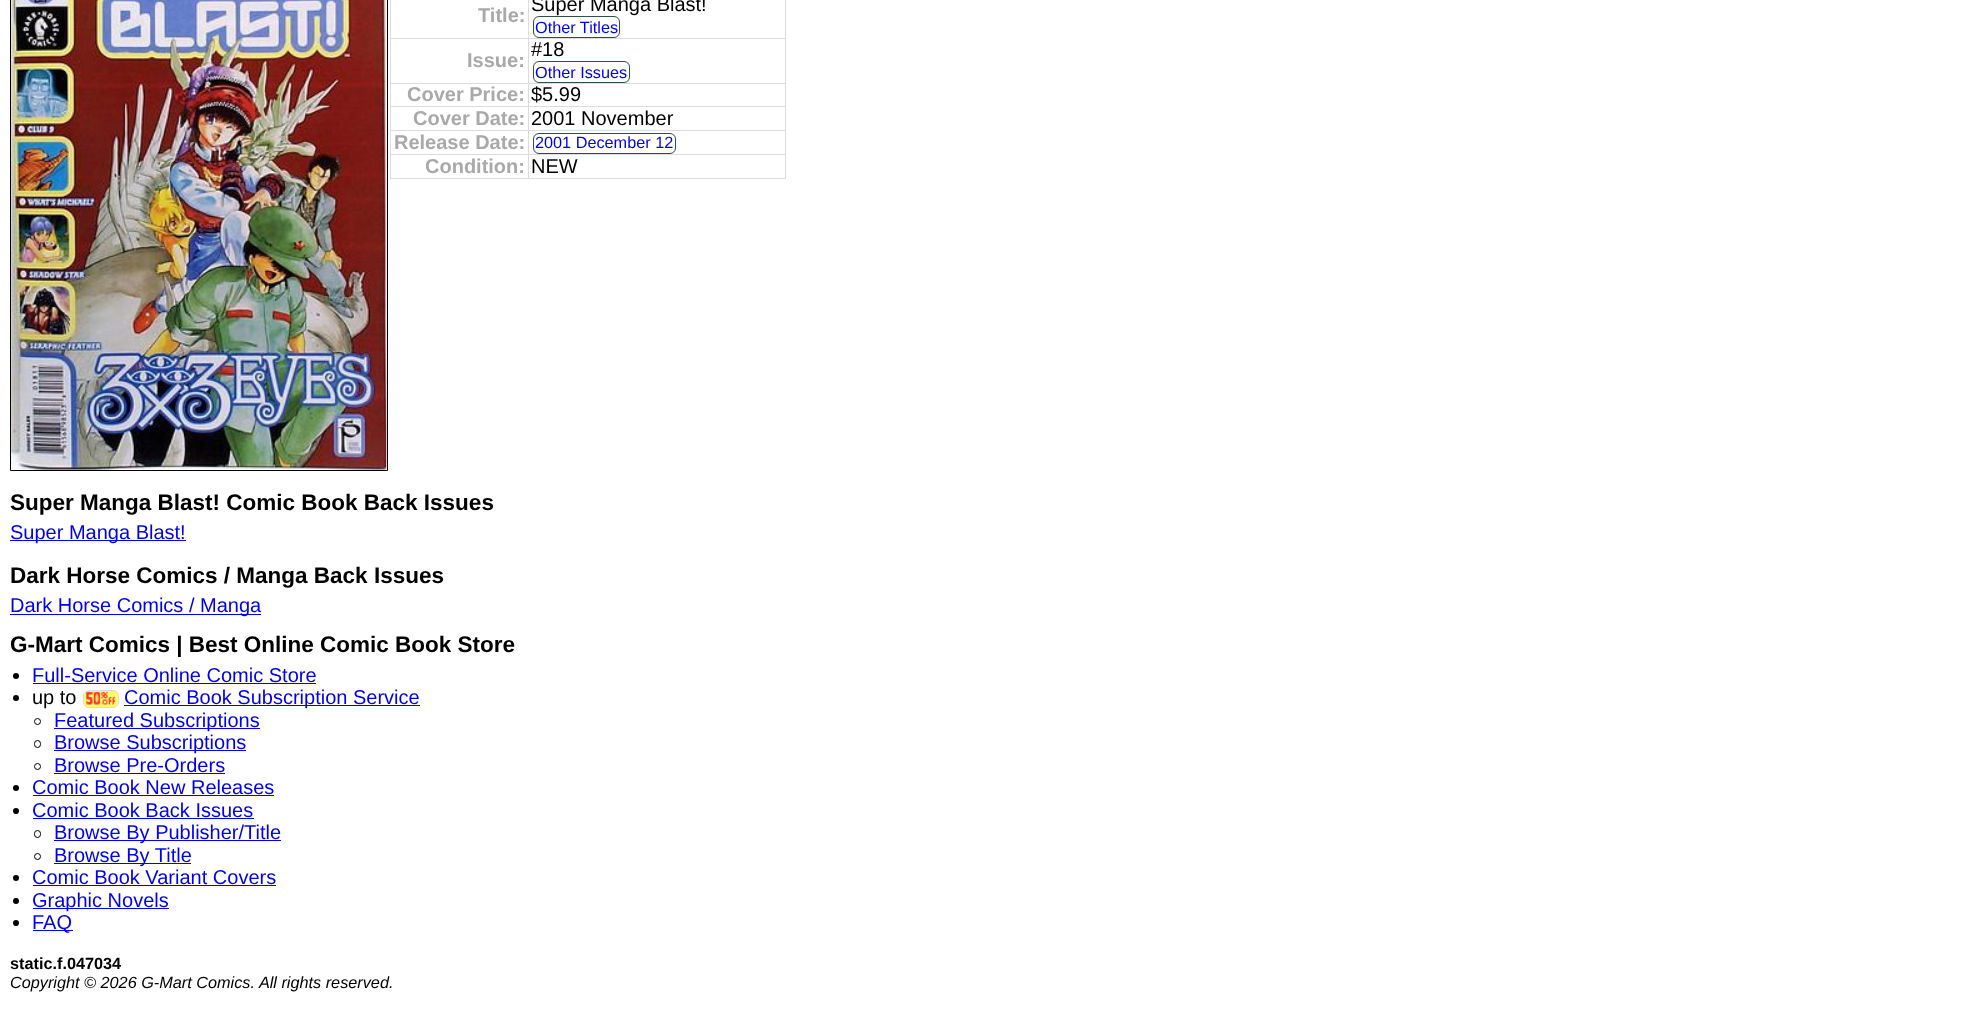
<svg xmlns="http://www.w3.org/2000/svg" width="1964" height="1011">
<style>
.a{font:bold 20px Liberation Sans;fill:#a9a9a9}
.b{font:20px Liberation Sans;fill:#000}
.c{font:16.25px Liberation Sans;fill:#00e}
.d{font:bold 22.5px Liberation Sans;fill:#000}
.e{font:20px Liberation Sans;fill:#00e}
.f{font:bold 16.25px Liberation Sans;fill:#000}
.g{font:italic 16.25px Liberation Sans;fill:#000}
</style>
<rect width="100%" height="100%" fill="#fff"/>
<path fill="none" stroke="#000" d="M10.5 -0.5h377v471H10.5z"/>
<image href="1.png" x="11" y="0" width="376" height="470"/>
<path fill="#dcdcdc" d="M528 38h258v1H528z"/>
<path fill="#dcdcdc" d="M528 83h258v1H528z"/>
<path fill="#dcdcdc" d="M528 106h258v1H528z"/>
<path fill="#dcdcdc" d="M528 130h258v1H528z"/>
<path fill="#dcdcdc" d="M528 154h258v1H528z"/>
<path fill="#dcdcdc" d="M785 154h1v25H785z"/>
<path fill="#dcdcdc" d="M528 178h258v1H528z"/>
<path fill="#dcdcdc" d="M528 154h1v25H528z"/>
<path fill="#dcdcdc" d="M390 154h139v1H390z"/>
<path fill="#dcdcdc" d="M528 130h1v25H528z"/>
<path fill="#dcdcdc" d="M390 130h139v1H390z"/>
<path fill="#dcdcdc" d="M528 106h1v25H528z"/>
<path fill="#dcdcdc" d="M390 106h139v1H390z"/>
<path fill="#dcdcdc" d="M528 83h1v25H528z"/>
<path fill="#dcdcdc" d="M390 83h139v1H390z"/>
<path fill="#dcdcdc" d="M528 38h1v46H528z"/>
<path fill="#dcdcdc" d="M390 38h139v1H390z"/>
<path fill="#dcdcdc" d="M528 0h1v39H528z"/>
<rect fill="none" stroke="#2f4f4f" x="533.5" y="16.5" width="86" height="21" rx="5.5"/>
<path fill="#dcdcdc" d="M390 178h139v1H390z"/>
<path fill="#dcdcdc" d="M390 154h1v25H390z"/>
<path fill="#dcdcdc" d="M390 130h1v25H390z"/>
<path fill="#dcdcdc" d="M390 106h1v25H390z"/>
<path fill="#dcdcdc" d="M390 83h1v25H390z"/>
<path fill="#dcdcdc" d="M390 0h1v84H390z"/>
<path fill="#dcdcdc" d="M785 130h1v25H785z"/>
<path fill="#dcdcdc" d="M785 106h1v25H785z"/>
<path fill="#dcdcdc" d="M785 83h1v25H785z"/>
<path fill="#dcdcdc" d="M785 0h1v84H785z"/>
<rect fill="none" stroke="#2f4f4f" x="533.5" y="61.5" width="96" height="21" rx="5.5"/>
<rect fill="none" stroke="#2f4f4f" x="533.5" y="133.5" width="142" height="20" rx="5.5"/>
<path fill="#00e" d="M10 540h176v1H10z"/>
<path fill="#00e" d="M10 614h251v1H10z"/>
<circle fill="#000" cx="16" cy="676" r="3"/>
<path fill="#00e" d="M33 683h283v1H33z"/>
<circle fill="#000" cx="16" cy="698" r="3"/>
<rect fill="#ff6" stroke="#dcdcdc" x="83.5" y="690.5" width="35" height="17" rx="5.5"/>
<image href="2.png" x="86" y="691" width="30" height="14"/>
<path fill="#00e" d="M124 705h296v1H124z"/>
<circle fill="none" stroke="#000" cx="37.5" cy="721.5" r="3"/>
<path fill="#00e" d="M54 728h206v1H54z"/>
<rect fill="none" stroke="#000" x="34.5" y="740.5" width="6" height="7" rx="3"/>
<path fill="#00e" d="M54 750h192v1H54z"/>
<circle fill="none" stroke="#000" cx="37.5" cy="766.5" r="3"/>
<path fill="#00e" d="M54 773h171v1H54z"/>
<circle fill="#000" cx="16" cy="788" r="3"/>
<path fill="#00e" d="M33 795h241v1H33z"/>
<circle fill="#000" cx="16" cy="811" r="3"/>
<path fill="#00e" d="M33 818h221v1H33z"/>
<rect fill="none" stroke="#000" x="34.5" y="830.5" width="6" height="7" rx="3"/>
<path fill="#00e" d="M54 840h227v1H54z"/>
<circle fill="none" stroke="#000" cx="37.5" cy="856.5" r="3"/>
<path fill="#00e" d="M54 863h137v1H54z"/>
<circle fill="#000" cx="16" cy="878" r="3"/>
<path fill="#00e" d="M33 885h243v1H33z"/>
<circle fill="#000" cx="16" cy="901" r="3"/>
<path fill="#00e" d="M33 908h136v1H33z"/>
<circle fill="#000" cx="16" cy="923" r="3"/>
<path fill="#00e" d="M33 930h40v1H33z"/>
<text class="a" x="478" y="22">Title:</text>
<text class="b" x="531" y="11">Super Manga Blast!</text>
<text class="c" x="535" y="33">Other Titles</text>
<text class="a" x="467" y="67">Issue:</text>
<text class="b" x="531" y="56">#18</text>
<text class="c" x="535" y="78">Other Issues</text>
<text class="a" x="407" y="101">Cover Price:</text>
<text class="b" x="531" y="101">$5.99</text>
<text class="a" x="413" y="125">Cover Date:</text>
<text class="b" x="531" y="125">2001 November</text>
<text class="a" x="394" y="149">Release Date:</text>
<text class="c" x="535" y="148">2001 December 12</text>
<text class="a" x="425" y="173">Condition:</text>
<text class="b" x="531" y="173">NEW</text>
<text class="d" x="10" y="510">Super Manga Blast! Comic Book Back Issues</text>
<text class="e" x="10" y="539">Super Manga Blast!</text>
<text class="d" x="10" y="583">Dark Horse Comics / Manga Back Issues</text>
<text class="e" x="10" y="612">Dark Horse Comics / Manga</text>
<text class="d" x="10" y="652">G-Mart Comics | Best Online Comic Book Store</text>
<text class="e" x="32" y="682">Full-Service Online Comic Store</text>
<text class="b" x="32" y="704">up to</text>
<text class="e" x="124" y="704">Comic Book Subscription Service</text>
<text class="e" x="54" y="727">Featured Subscriptions</text>
<text class="e" x="54" y="749">Browse Subscriptions</text>
<text class="e" x="54" y="772">Browse Pre-Orders</text>
<text class="e" x="32" y="794">Comic Book New Releases</text>
<text class="e" x="32" y="817">Comic Book Back Issues</text>
<text class="e" x="54" y="839">Browse By Publisher/Title</text>
<text class="e" x="54" y="862">Browse By Title</text>
<text class="e" x="32" y="884">Comic Book Variant Covers</text>
<text class="e" x="32" y="907">Graphic Novels</text>
<text class="e" x="32" y="929">FAQ</text>
<text class="f" x="10" y="969">static.f.047034</text>
<text class="g" x="10" y="988">Copyright © 2026 G-Mart Comics. All rights reserved.</text>
</svg>
